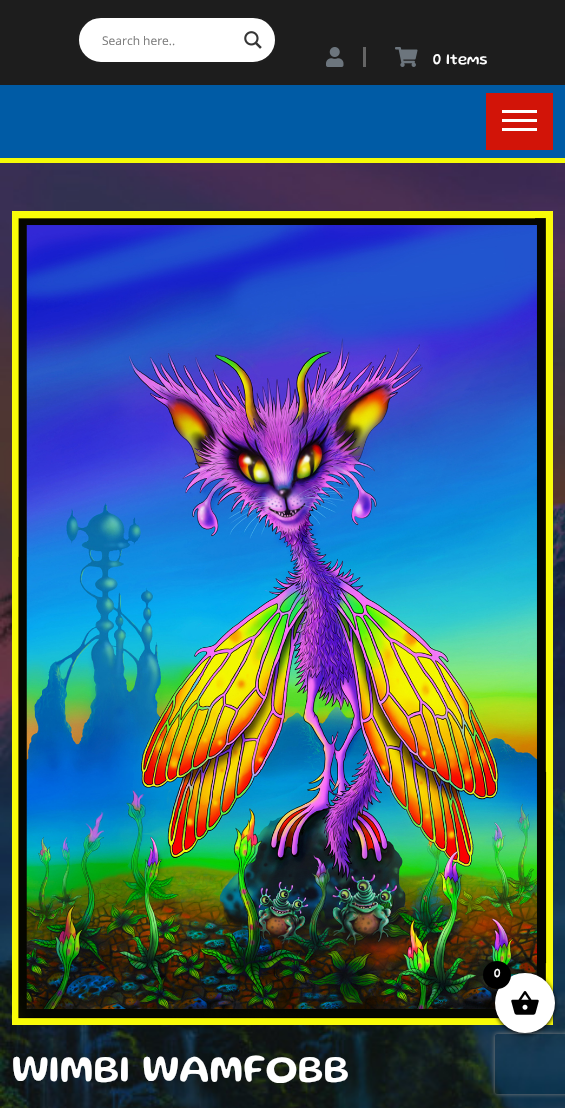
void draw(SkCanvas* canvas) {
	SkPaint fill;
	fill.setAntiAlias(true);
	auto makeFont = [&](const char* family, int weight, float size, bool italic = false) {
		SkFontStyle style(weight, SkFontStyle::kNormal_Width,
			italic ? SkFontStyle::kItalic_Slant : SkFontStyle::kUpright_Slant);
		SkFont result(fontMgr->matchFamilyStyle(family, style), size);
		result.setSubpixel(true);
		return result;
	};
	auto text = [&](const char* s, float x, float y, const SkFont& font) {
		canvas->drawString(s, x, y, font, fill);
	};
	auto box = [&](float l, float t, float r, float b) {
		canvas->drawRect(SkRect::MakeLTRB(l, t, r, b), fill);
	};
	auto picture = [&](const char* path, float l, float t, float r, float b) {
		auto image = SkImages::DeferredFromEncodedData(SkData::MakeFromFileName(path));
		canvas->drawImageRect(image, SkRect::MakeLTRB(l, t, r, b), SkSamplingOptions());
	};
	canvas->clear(0xFF1D1D1D);
	fill.setColor(0xFFFFFFFF);
	canvas->drawRoundRect(SkRect::MakeLTRB(78, 17, 276, 63), 23, 23, fill);
	fill.setStyle(SkPaint::kStroke_Style);
	fill.setStrokeWidth(2);
	fill.setColor(0xFF1E1E1E);
	canvas->drawRoundRect(SkRect::MakeLTRB(78, 17, 276, 63), 23, 23, fill);
	picture("image0.png", 244, 31, 262, 49);
	fill.setStyle(SkPaint::kFill_Style);
	fill.setColor(0xFF656565);
	box(363, 47, 366, 67);
	picture("image1.png", 326, 47, 344, 67);
	picture("image2.png", 395, 47, 418, 67);
	fill.setColor(0xFF005BA5);
	box(0, 85, 565, 158);
	fill.setColor(0xFFD21408);
	box(486, 93, 553, 150);
	fill.setColor(0xFFFFFFFF);
	box(502, 110, 537, 113);
	box(502, 119, 537, 122);
	box(502, 128, 537, 131);
	picture("image4.png", 0, 163, 565, 1108);
	picture("image5.png", 12, 211, 553, 1025);
	fill.setColor(0xFF000000);
	fill.setMaskFilter(SkMaskFilter::MakeBlur(kNormal_SkBlurStyle, 2));
	canvas->drawRoundRect(SkRect::MakeLTRB(495, 974, 555, 1034), 30, 30, fill);
	fill.setMaskFilter(nullptr);
	canvas->save();
	canvas->clipPath(SkPathBuilder(SkPathFillType::kEvenOdd).moveTo(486, 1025).lineTo(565, 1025).lineTo(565, 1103).lineTo(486, 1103).close().moveTo(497, 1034).lineTo(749, 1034).cubicTo(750, 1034, 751, 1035, 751, 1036).lineTo(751, 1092).cubicTo(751, 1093, 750, 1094, 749, 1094).lineTo(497, 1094).cubicTo(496, 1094, 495, 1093, 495, 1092).lineTo(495, 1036).cubicTo(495, 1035, 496, 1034, 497, 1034).close().detach(), true);
	fill.setColor(0xFF808080);
	fill.setMaskFilter(SkMaskFilter::MakeBlur(kNormal_SkBlurStyle, 2.5f));
	canvas->drawRoundRect(SkRect::MakeLTRB(495, 1034, 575, 1094), 2, 2, fill);
	fill.setMaskFilter(nullptr);
	canvas->restore();
	fill.setColor(0xFFFFFFFF);
	canvas->drawCircle(525, 1003, 30, fill);
	fill.setColor(0xFF000000);
	canvas->drawCircle(497, 975, 14, fill);
	picture("image3.png", 511, 991, 539, 1015);
	fill.setColor(0xFFF5FB07);
	box(0, 158, 565, 163);
	auto font1 = makeFont("Open Sans", 400, 12);
	fill.setColor(0xFF7D7D7D);
	text("Search here..", 102, 45, font1);
	auto font2 = makeFont("Gluten", 400, 16);
	fill.setColor(0xFFFFFFFF);
	text("0 Items", 433, 64, font2);
	auto font3 = makeFont("Gluten", 400, 13);
	text("0", 494, 977, font3);
	auto font4 = makeFont("Gluten", 500, 40);
	text("WIMBI WAMFOBB", 12, 1081, font4);
}
